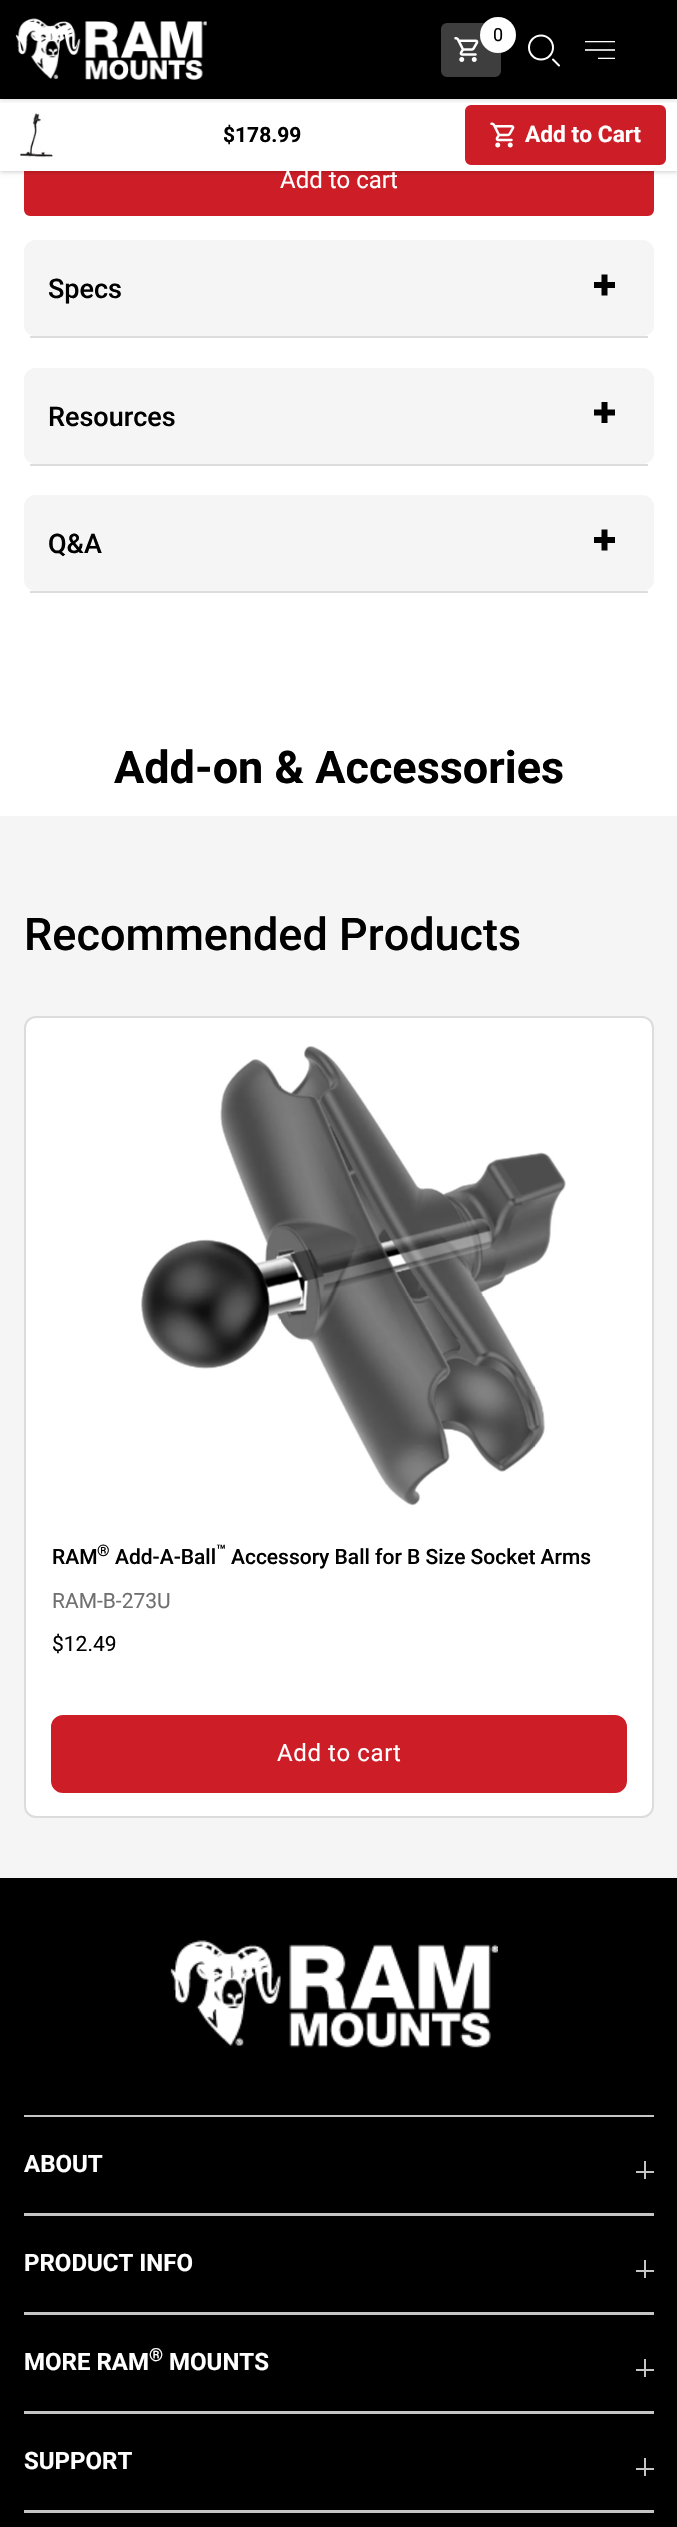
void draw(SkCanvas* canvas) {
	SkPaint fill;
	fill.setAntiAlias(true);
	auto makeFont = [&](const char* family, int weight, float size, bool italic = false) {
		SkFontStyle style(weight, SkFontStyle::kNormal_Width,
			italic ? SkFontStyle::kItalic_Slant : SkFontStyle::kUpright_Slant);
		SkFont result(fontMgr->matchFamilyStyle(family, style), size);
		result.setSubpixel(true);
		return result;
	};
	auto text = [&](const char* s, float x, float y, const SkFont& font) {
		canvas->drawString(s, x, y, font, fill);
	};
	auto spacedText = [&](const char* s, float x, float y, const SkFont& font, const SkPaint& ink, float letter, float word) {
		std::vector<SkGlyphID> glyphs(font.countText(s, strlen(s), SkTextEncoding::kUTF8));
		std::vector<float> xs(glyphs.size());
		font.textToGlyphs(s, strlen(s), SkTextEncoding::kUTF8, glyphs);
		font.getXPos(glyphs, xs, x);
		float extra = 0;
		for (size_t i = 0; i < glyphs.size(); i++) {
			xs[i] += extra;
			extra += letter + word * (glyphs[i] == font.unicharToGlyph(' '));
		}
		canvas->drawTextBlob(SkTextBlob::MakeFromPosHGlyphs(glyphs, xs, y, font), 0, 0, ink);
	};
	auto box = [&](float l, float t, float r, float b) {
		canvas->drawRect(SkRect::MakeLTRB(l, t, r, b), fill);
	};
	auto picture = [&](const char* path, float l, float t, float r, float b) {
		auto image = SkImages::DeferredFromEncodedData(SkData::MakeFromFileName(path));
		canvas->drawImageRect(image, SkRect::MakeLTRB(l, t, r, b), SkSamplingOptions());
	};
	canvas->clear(0xFFFFFFFF);
	fill.setColor(0xFFCD1E27);
	canvas->drawRoundRect(SkRect::MakeLTRB(25.5f, 145.5f, 652.5f, 214.5f), 4.5f, 4.5f, fill);
	fill.setStyle(SkPaint::kStroke_Style);
	fill.setStrokeWidth(3);
	canvas->drawRoundRect(SkRect::MakeLTRB(25.5f, 145.5f, 652.5f, 214.5f), 4.5f, 4.5f, fill);
	fill.setStyle(SkPaint::kFill_Style);
	fill.setColor(0x1A000000);
	fill.setMaskFilter(SkMaskFilter::MakeBlur(kNormal_SkBlurStyle, 1.5f));
	canvas->drawRect(SkRect::MakeLTRB(2, 102, 677, 171), fill);
	fill.setMaskFilter(nullptr);
	fill.setMaskFilter(SkMaskFilter::MakeBlur(kNormal_SkBlurStyle, 2));
	canvas->drawRect(SkRect::MakeLTRB(0, 101, 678, 173), fill);
	fill.setMaskFilter(nullptr);
	fill.setColor(0xFF000000);
	box(0, 0, 677, 99);
	fill.setColor(0xFFFFFFFF);
	box(0, 99, 677, 171);
	fill.setColor(0xFFCD1E27);
	canvas->drawRoundRect(SkRect::MakeLTRB(466.5f, 106.5f, 664.5f, 163.5f), 4.5f, 4.5f, fill);
	fill.setStyle(SkPaint::kStroke_Style);
	canvas->drawRoundRect(SkRect::MakeLTRB(466.5f, 106.5f, 664.5f, 163.5f), 4.5f, 4.5f, fill);
	canvas->save();
	canvas->clipRect(SkRect::MakeLTRB(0, 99, 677, 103));
	fill.setStyle(SkPaint::kFill_Style);
	fill.setColor(0x1A000000);
	fill.setMaskFilter(SkMaskFilter::MakeBlur(kNormal_SkBlurStyle, 2));
	canvas->drawRect(SkRect::MakeLTRB(0, 2, 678, 101), fill);
	fill.setMaskFilter(nullptr);
	canvas->restore();
	picture("image0.png", 15, 18, 207, 80);
	fill.setColor(0xFF3E3E3E);
	canvas->drawRoundRect(SkRect::MakeLTRB(442.5f, 24.5f, 499.5f, 75.5f), 4.5f, 4.5f, fill);
	fill.setStyle(SkPaint::kStroke_Style);
	canvas->drawRoundRect(SkRect::MakeLTRB(442.5f, 24.5f, 499.5f, 75.5f), 4.5f, 4.5f, fill);
	fill.setStyle(SkPaint::kFill_Style);
	fill.setColor(0xFFFFFFFF);
	canvas->drawCircle(498, 35, 18, fill);
	picture("image1.png", 454, 37, 479, 62);
	fill.setStyle(SkPaint::kStroke_Style);
	fill.setStrokeWidth(2);
	canvas->drawCircle(541, 47.5f, 12, fill);
	fill.setStrokeCap(SkPaint::kRound_Cap);
	canvas->drawPath(SkPathBuilder().moveTo(559, 65.5f).lineTo(553, 59.5f).detach(), fill);
	canvas->save();
	canvas->clipRect(SkRect::MakeLTRB(585, 41, 615, 59));
	fill.setStrokeWidth(1.6f);
	fill.setStrokeCap(SkPaint::kButt_Cap);
	canvas->drawPath(SkPathBuilder().moveTo(585, 41.5f).lineTo(615, 41.5f).detach(), fill);
	canvas->restore();
	fill.setStyle(SkPaint::kFill_Style);
	fill.setColor(0xFFCCCCCC);
	box(585, 49, 615, 51);
	canvas->save();
	canvas->clipRect(SkRect::MakeLTRB(585, 41, 615, 59));
	fill.setStyle(SkPaint::kStroke_Style);
	fill.setColor(0xFFFFFFFF);
	canvas->drawPath(SkPathBuilder().moveTo(598, 58.5f).lineTo(615, 58.5f).detach(), fill);
	canvas->restore();
	picture("image2.png", 20, 113, 53, 159);
	picture("image3.png", 490, 122, 515, 148);
	fill.setStyle(SkPaint::kFill_Style);
	fill.setColor(0xFFF5F5F5);
	canvas->drawPath(SkPathBuilder().moveTo(36, 240).lineTo(642, 240).cubicTo(649, 240, 654, 245, 654, 252).lineTo(654, 326).cubicTo(654, 331, 649, 336, 642, 336).lineTo(36, 336).cubicTo(29, 336, 24, 331, 24, 326).lineTo(24, 252).cubicTo(24, 245, 29, 240, 36, 240).close().detach(), fill);
	fill.setColor(0xFFDDDDDD);
	box(30, 336, 648, 338);
	picture("image4.png", 594, 274, 615, 296);
	fill.setColor(0xFFF5F5F5);
	canvas->drawPath(SkPathBuilder().moveTo(36, 368).lineTo(642, 368).cubicTo(649, 368, 654, 373, 654, 380).lineTo(654, 453).cubicTo(654, 459, 649, 464, 642, 464).lineTo(36, 464).cubicTo(29, 464, 24, 459, 24, 453).lineTo(24, 380).cubicTo(24, 373, 29, 368, 36, 368).close().detach(), fill);
	fill.setColor(0xFFDDDDDD);
	box(30, 464, 648, 466);
	picture("image5.png", 594, 402, 615, 423);
	fill.setColor(0xFFF5F5F5);
	canvas->drawPath(SkPathBuilder().moveTo(36, 495).lineTo(642, 495).cubicTo(649, 495, 654, 500, 654, 507).lineTo(654, 580).cubicTo(654, 586, 649, 591, 642, 591).lineTo(36, 591).cubicTo(29, 591, 24, 586, 24, 580).lineTo(24, 507).cubicTo(24, 500, 29, 495, 36, 495).close().detach(), fill);
	fill.setColor(0xFFDDDDDD);
	box(30, 591, 648, 593);
	picture("image4.png", 594, 529, 615, 551);
	fill.setColor(0xFFF5F5F5);
	box(0, 816, 677, 1878);
	fill.setColor(0xFFFFFFFF);
	canvas->drawRoundRect(SkRect::MakeLTRB(25, 1017, 653, 1817), 11, 11, fill);
	fill.setStyle(SkPaint::kStroke_Style);
	fill.setStrokeWidth(2);
	fill.setColor(0xFFDCDCDC);
	canvas->drawRoundRect(SkRect::MakeLTRB(25, 1017, 653, 1817), 11, 11, fill);
	picture("image6.png", 141, 1046, 566, 1506);
	fill.setStyle(SkPaint::kFill_Style);
	fill.setColor(0xFFCD1E27);
	canvas->drawRoundRect(SkRect::MakeLTRB(52.5f, 1716.5f, 625.5f, 1791.5f), 10.5f, 10.5f, fill);
	fill.setStyle(SkPaint::kStroke_Style);
	fill.setStrokeWidth(3);
	canvas->drawRoundRect(SkRect::MakeLTRB(52.5f, 1716.5f, 625.5f, 1791.5f), 10.5f, 10.5f, fill);
	fill.setStyle(SkPaint::kFill_Style);
	fill.setColor(0xFF000000);
	box(0, 1878, 677, 2527);
	picture("image7.png", 170, 1940, 498, 2048);
	fill.setColor(0xFFC5C5C5);
	box(24, 2213, 654, 2216);
	box(24, 2115, 654, 2117);
	box(644, 2161, 646, 2179);
	box(636, 2171, 654, 2173);
	box(24, 2312, 654, 2315);
	box(644, 2260, 646, 2278);
	box(636, 2270, 654, 2272);
	box(24, 2411, 654, 2414);
	box(644, 2359, 646, 2377);
	box(636, 2369, 654, 2371);
	box(24, 2510, 654, 2513);
	box(644, 2458, 646, 2476);
	box(636, 2468, 654, 2470);
	auto font1 = makeFont("Roboto", 400, 18);
	fill.setColor(0xFF000000);
	text("0", 493, 41, font1);
	auto font2 = makeFont("Roboto", 700, 21);
	text("$178.99", 223, 142, font2);
	auto font3 = makeFont("Roboto", 700, 22.75f);
	fill.setColor(0xFFFFFFFF);
	text("Add to Cart", 525, 142, font3);
	auto font4 = makeFont("Roboto", 400, 24);
	text("Add to cart", 280, 188, font4);
	auto font5 = makeFont("Roboto", 500, 27);
	fill.setColor(0xFF000000);
	text("Specs", 48, 298, font5);
	text("Resources", 48, 426, font5);
	text("Q&A", 48, 553, font5);
	auto font6 = makeFont("Roboto", 700, 45);
	text("Add-on & Accessories", 114, 783, font6);
	auto font7 = makeFont("Roboto", 500, 45);
	text("Recommended Products", 24, 950, font7);
	auto font8 = makeFont("Roboto", 500, 16);
	text("®", 97, 1556, font8);
	text("™", 216, 1556, font8);
	auto font9 = makeFont("Roboto", 500, 21);
	text("RAM", 52, 1564, font9);
	text("Add-A-Ball", 115, 1564, font9);
	text("Accessory Ball for B Size Socket Arms", 231, 1564, font9);
	auto font10 = makeFont("Roboto", 400, 21);
	fill.setColor(0xFF707070);
	text("RAM-B-273U", 52, 1608, font10);
	fill.setColor(0xFF000000);
	text("$12.49", 52, 1651, font10);
	fill.setColor(0xFFFFFFFF);
	spacedText("Add to cart", 277, 1761, font4, fill, 0.6f, 0);
	auto font11 = makeFont("Roboto", 700, 24);
	text("ABOUT", 24, 2172, font11);
	text("PRODUCT INFO", 24, 2271, font11);
	text("MORE RAM", 24, 2370, font11);
	auto font12 = makeFont("Roboto", 700, 18);
	text("®", 149, 2361, font12);
	text("MOUNTS", 169, 2370, font11);
	text("SUPPORT", 24, 2469, font11);
}
